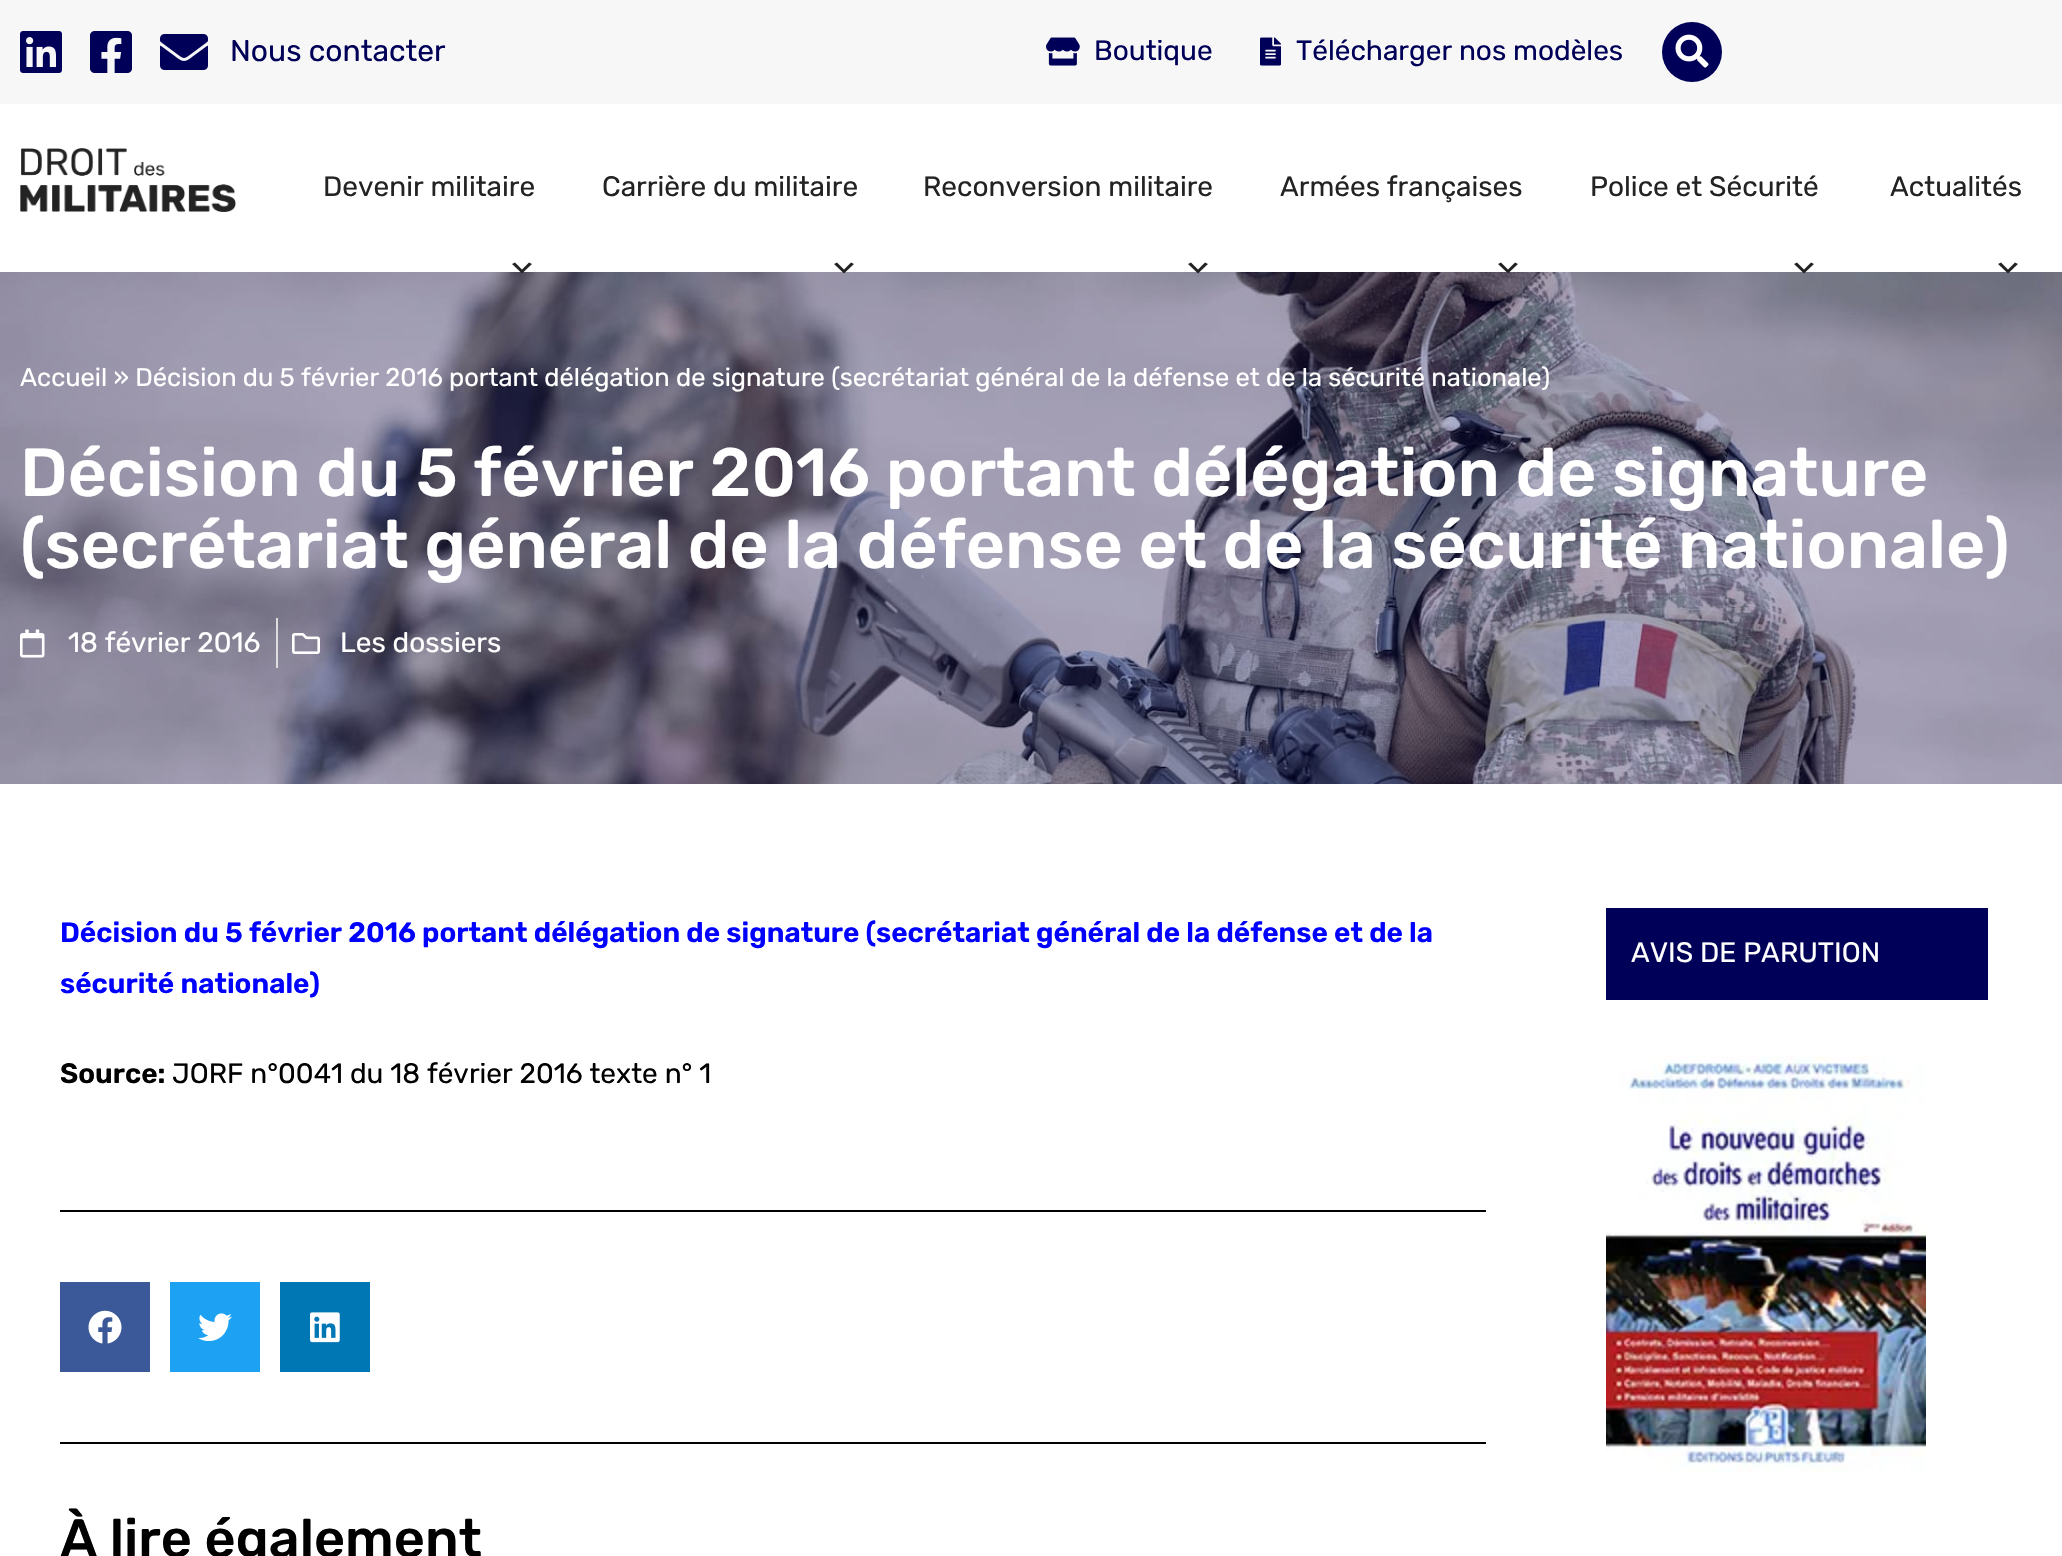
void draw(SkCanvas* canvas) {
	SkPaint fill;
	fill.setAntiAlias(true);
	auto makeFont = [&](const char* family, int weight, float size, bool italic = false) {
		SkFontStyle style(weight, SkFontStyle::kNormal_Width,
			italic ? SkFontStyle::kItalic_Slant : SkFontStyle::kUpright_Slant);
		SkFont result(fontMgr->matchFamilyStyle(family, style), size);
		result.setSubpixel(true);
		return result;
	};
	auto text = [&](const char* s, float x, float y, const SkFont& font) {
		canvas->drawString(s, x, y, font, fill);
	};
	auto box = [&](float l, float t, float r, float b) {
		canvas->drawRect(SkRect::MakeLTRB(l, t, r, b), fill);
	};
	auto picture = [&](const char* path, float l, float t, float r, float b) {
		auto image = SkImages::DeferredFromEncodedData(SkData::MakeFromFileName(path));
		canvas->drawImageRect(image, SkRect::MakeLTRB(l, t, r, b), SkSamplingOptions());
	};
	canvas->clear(0xFFFFFFFF);
	fill.setColor(0xFFF7F7F7);
	box(0, 0, 2062, 104);
	picture("image0.png", 20, 31, 62, 73);
	picture("image1.png", 90, 31, 132, 73);
	picture("image2.png", 160, 34, 208, 70);
	picture("image3.png", 1046, 37, 1080, 66);
	picture("image4.png", 1260, 37, 1281, 66);
	fill.setColor(0xFF000058);
	canvas->drawCircle(1692, 52, 30, fill);
	picture("image5.png", 1675, 34, 1709, 68);
	picture("image6.png", 20, 148, 236, 212);
	picture("image7.png", 0, 272, 2062, 784);
	fill.setColor(0xFF232323);
	canvas->drawPath(SkPathBuilder().moveTo(515, 262.5f).lineTo(522, 269.5f).lineTo(529, 262.5f).lineTo(532, 264).lineTo(522, 273.5f).lineTo(512, 264).close().detach(), fill);
	canvas->drawPath(SkPathBuilder().moveTo(837, 262.5f).lineTo(844, 269.5f).lineTo(851, 262.5f).lineTo(854, 264).lineTo(844, 273.5f).lineTo(834, 264).close().detach(), fill);
	canvas->drawPath(SkPathBuilder().moveTo(1191, 262.5f).lineTo(1198, 269.5f).lineTo(1205, 262.5f).lineTo(1208, 264).lineTo(1198, 273.5f).lineTo(1188, 264).close().detach(), fill);
	canvas->drawPath(SkPathBuilder().moveTo(1501, 262.5f).lineTo(1508, 269.5f).lineTo(1515, 262.5f).lineTo(1518, 264).lineTo(1508, 273.5f).lineTo(1498, 264).close().detach(), fill);
	canvas->drawPath(SkPathBuilder().moveTo(1797, 262.5f).lineTo(1804, 269.5f).lineTo(1811, 262.5f).lineTo(1814, 264).lineTo(1804, 273.5f).lineTo(1794, 264).close().detach(), fill);
	canvas->drawPath(SkPathBuilder().moveTo(2001, 262.5f).lineTo(2008, 269.5f).lineTo(2015, 262.5f).lineTo(2018, 264).lineTo(2008, 273.5f).lineTo(1998, 264).close().detach(), fill);
	picture("image8.png", 20, 629, 45, 658);
	fill.setColor(0xFFDDDDDD);
	box(276, 618, 278, 668);
	picture("image9.png", 292, 633, 320, 654);
	fill.setColor(0xFF000000);
	box(60, 1210, 1486, 1212);
	fill.setColor(0xFF3B5998);
	box(60, 1282, 150, 1372);
	picture("image10.png", 88, 1310, 122, 1344);
	fill.setColor(0xFF1DA1F2);
	box(170, 1282, 260, 1372);
	picture("image11.png", 198, 1313, 232, 1342);
	fill.setColor(0xFF0077B5);
	box(280, 1282, 370, 1372);
	picture("image12.png", 310, 1312, 340, 1343);
	fill.setColor(0xFF000000);
	box(60, 1442, 1486, 1444);
	fill.setColor(0xFF000058);
	box(1606, 908, 1988, 1000);
	picture("image13.png", 1606, 1056, 1926, 1472);
	auto font1 = makeFont("Rubik", 400, 30);
	text("Nous contacter", 230, 61, font1);
	auto font2 = makeFont("Rubik", 400, 28);
	text("Boutique", 1094, 60, font2);
	text("Télécharger nos modèles", 1296, 60, font2);
	fill.setColor(0xFF232323);
	text("Devenir militaire", 323, 196, font2);
	text("Carrière du militaire", 602, 196, font2);
	text("Reconversion militaire", 923, 196, font2);
	text("Armées françaises", 1280, 196, font2);
	text("Police et Sécurité", 1590, 196, font2);
	text("Actualités", 1890, 196, font2);
	auto font3 = makeFont("Rubik", 400, 25.5f);
	fill.setColor(0xFFFFFFFF);
	text("Accueil » Décision du 5 février 2016 portant délégation de signature (secrétariat général de la défense et de la sécurité nationale)", 20, 386, font3);
	auto font4 = makeFont("Rubik", 500, 68);
	text("Décision du 5 février 2016 portant délégation de signature", 20, 496, font4);
	text("(secrétariat général de la défense et de la sécurité nationale)", 20, 568, font4);
	text("18 février 2016", 68, 652, font2);
	text("Les dossiers", 340, 652, font2);
	auto font5 = makeFont("Rubik", 600, 28);
	fill.setColor(0xFF0000FF);
	text("Décision du 5 février 2016 portant délégation de signature (secrétariat général de la défense et de la", 60, 942, font5);
	text("sécurité nationale)", 60, 993, font5);
	fill.setColor(0xFF000000);
	text("Source:", 60, 1083, font5);
	text("JORF n°0041 du 18 février 2016 texte n° 1", 172, 1083, font2);
	auto font6 = makeFont("Rubik", 500, 54);
	text("À lire également", 60, 1557, font6);
	fill.setColor(0xFFFFFFFF);
	text("AVIS DE PARUTION", 1631, 962, font2);
}
